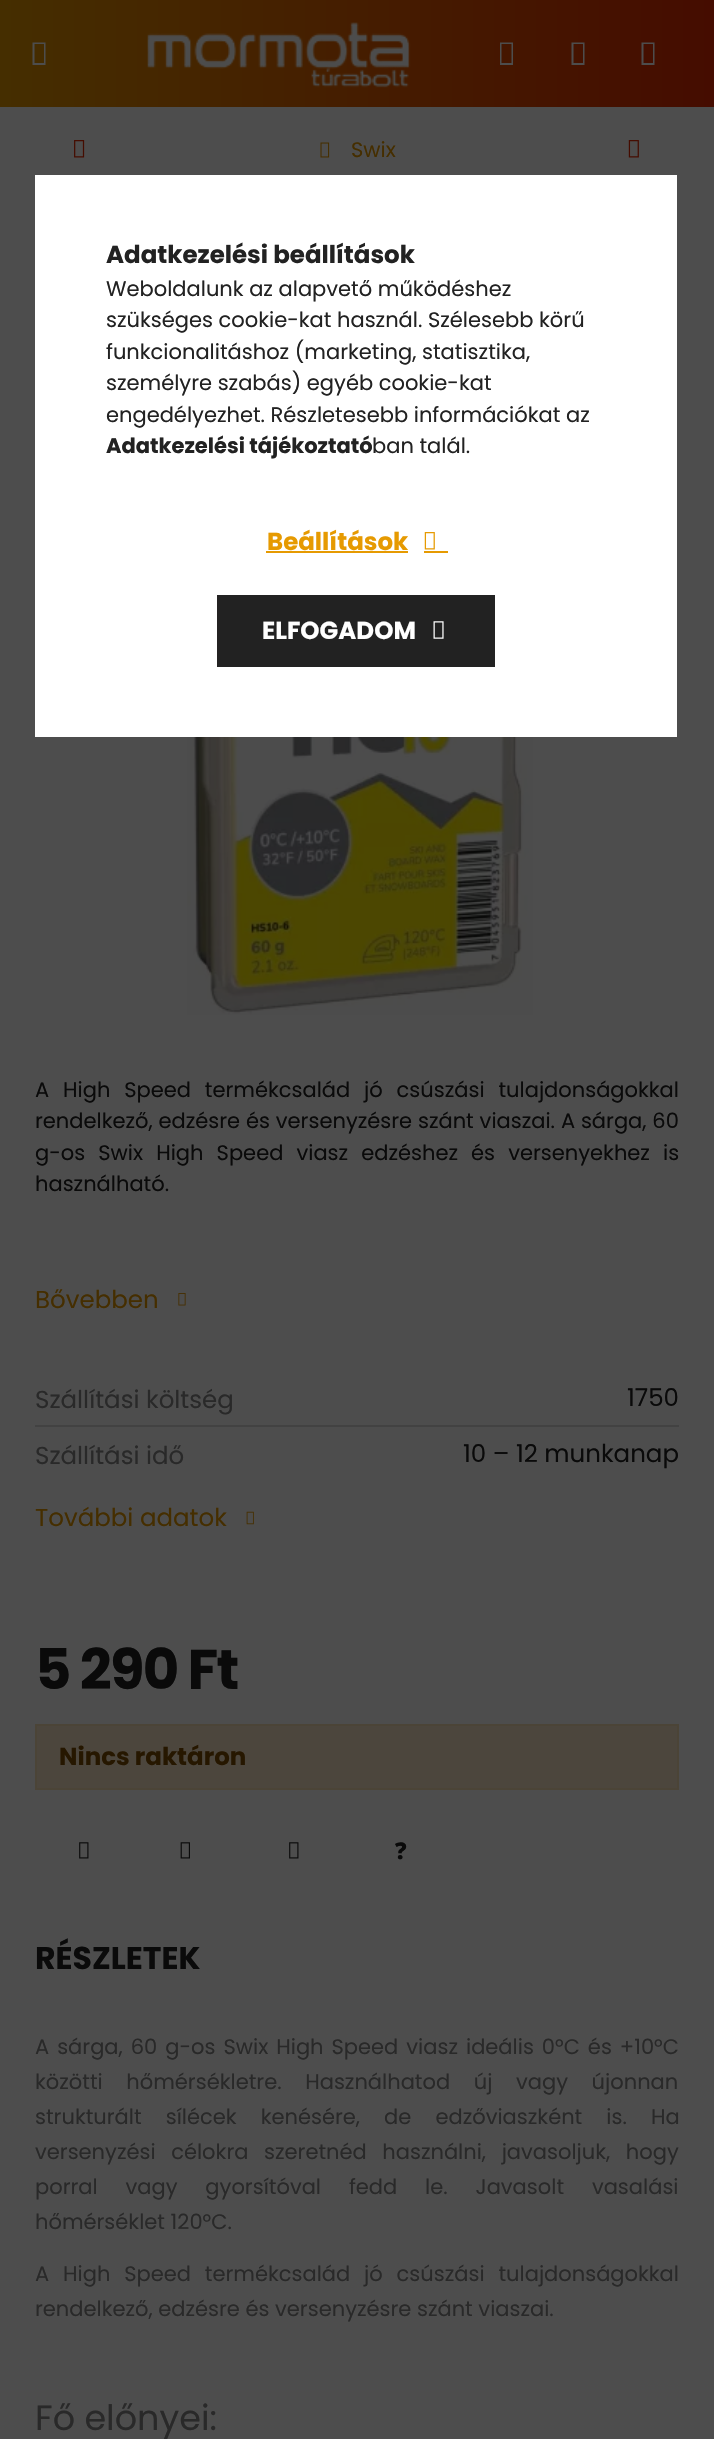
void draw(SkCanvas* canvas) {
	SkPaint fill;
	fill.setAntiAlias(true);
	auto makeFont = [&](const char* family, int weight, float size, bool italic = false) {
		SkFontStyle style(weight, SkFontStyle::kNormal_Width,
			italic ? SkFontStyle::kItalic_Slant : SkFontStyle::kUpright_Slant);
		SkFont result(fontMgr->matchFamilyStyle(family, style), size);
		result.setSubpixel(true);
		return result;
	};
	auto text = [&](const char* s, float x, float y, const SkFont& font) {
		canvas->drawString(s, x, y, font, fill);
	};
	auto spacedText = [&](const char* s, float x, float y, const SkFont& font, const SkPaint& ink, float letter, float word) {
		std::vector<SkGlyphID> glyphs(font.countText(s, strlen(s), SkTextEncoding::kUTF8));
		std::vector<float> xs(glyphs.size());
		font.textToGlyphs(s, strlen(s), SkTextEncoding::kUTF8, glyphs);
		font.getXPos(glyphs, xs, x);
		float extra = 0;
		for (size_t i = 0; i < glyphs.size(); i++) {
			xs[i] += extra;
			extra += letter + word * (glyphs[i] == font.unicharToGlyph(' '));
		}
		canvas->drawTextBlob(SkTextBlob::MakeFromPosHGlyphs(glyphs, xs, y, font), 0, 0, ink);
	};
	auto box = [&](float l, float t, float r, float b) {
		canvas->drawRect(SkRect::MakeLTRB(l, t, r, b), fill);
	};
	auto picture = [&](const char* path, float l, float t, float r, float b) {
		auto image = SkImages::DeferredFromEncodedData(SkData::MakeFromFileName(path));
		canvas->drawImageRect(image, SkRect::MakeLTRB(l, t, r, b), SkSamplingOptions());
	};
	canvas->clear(0xFF4D4D4D);
	{
		const SkColor colors[] = {0xFF452E00, 0xFF450C00};
		const float stops[] = {0, 1};
		const SkPoint ends[] = {{0, 53}, {714, 53}};
		fill.setShader(SkGradientShader::MakeLinear(ends, colors, stops, 2, SkTileMode::kClamp));
		fill.setAlpha(255);
	}
	box(0, 0, 714, 107);
	fill.setShader(nullptr);
	fill.setColor(0xFF4D4D4D);
	canvas->drawPath(SkPathBuilder().moveTo(32.5f, 65).lineTo(32.5f, 42.5f).lineTo(45.5f, 42.5f).lineTo(45.5f, 65).close().moveTo(34.5f, 63).lineTo(44, 63).lineTo(44, 44).lineTo(34.5f, 44).close().detach(), fill);
	picture("image0.png", 147, 22, 411, 88);
	canvas->drawPath(SkPathBuilder().moveTo(500, 65).lineTo(500, 42.5f).lineTo(513, 42.5f).lineTo(513, 65).close().moveTo(501.5f, 63).lineTo(511.5f, 63).lineTo(511.5f, 44).lineTo(501.5f, 44).close().detach(), fill);
	canvas->drawPath(SkPathBuilder().moveTo(571.5f, 65).lineTo(571.5f, 42.5f).lineTo(584.5f, 42.5f).lineTo(584.5f, 65).close().moveTo(573.5f, 63).lineTo(583, 63).lineTo(583, 44).lineTo(573.5f, 44).close().detach(), fill);
	canvas->drawPath(SkPathBuilder().moveTo(641.5f, 65).lineTo(641.5f, 42.5f).lineTo(654.5f, 42.5f).lineTo(654.5f, 65).close().moveTo(643.5f, 63).lineTo(653, 63).lineTo(653, 44).lineTo(643.5f, 44).close().detach(), fill);
	picture("image1.png", 74, 140, 85, 158);
	picture("image2.png", 320, 142, 330, 158);
	picture("image3.png", 628, 140, 639, 158);
	picture("image4.png", 187, 737, 533, 1015);
	picture("image5.png", 178, 1293, 186, 1306);
	fill.setColor(0xFF424242);
	box(35, 1425, 679, 1427);
	picture("image6.png", 246, 1511, 254, 1525);
	fill.setColor(0xFF4C463D);
	canvas->drawRect(SkRect::MakeLTRB(36, 1725, 678, 1789), fill);
	fill.setStyle(SkPaint::kStroke_Style);
	fill.setStrokeWidth(2);
	fill.setColor(0xFF4B4437);
	canvas->drawRect(SkRect::MakeLTRB(36, 1725, 678, 1789), fill);
	picture("image7.png", 79, 1842, 89, 1859);
	picture("image8.png", 180, 1842, 190, 1859);
	picture("image7.png", 289, 1842, 299, 1859);
	fill.setStyle(SkPaint::kFill_Style);
	fill.setColor(0xFFFFFFFF);
	box(35, 175, 677, 737);
	fill.setColor(0xFFE69A01);
	box(266, 551, 408, 553);
	picture("image9.png", 424, 532, 435, 550);
	box(424, 551, 448, 553);
	{
		const SkColor colors[] = {0xFFE69A01, 0xFFE62701, 0xFF222222, 0xFF222222};
		const float stops[] = {0, 0.33f, 0.67f, 1};
		const SkPoint ends[] = {{-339, 631}, {496, 631}};
		fill.setShader(SkGradientShader::MakeLinear(ends, colors, stops, 4, SkTileMode::kClamp));
		fill.setAlpha(255);
	}
	box(217, 595, 495, 667);
	picture("image10.png", 433, 621, 444, 639);
	auto font1 = makeFont("Poppins", 400, 21);
	fill.setShader(nullptr);
	fill.setColor(0xFF452E00);
	text("Swix", 351, 157, font1);
	fill.setColor(0xFF0A0A0A);
	spacedText("A High Speed termékcsalád jó csúszási tulajdonságokkal", 35, 1097, font1, fill, 0, 8.25f);
	spacedText("rendelkező, edzésre és versenyzésre szánt viaszai. A sárga, 60", 35, 1128, font1, fill, 0, 0.25f);
	spacedText("g-os Swix High Speed viasz edzéshez és versenyekhez is", 35, 1160, font1, fill, 0, 7.5f);
	text("használható.", 35, 1191, font1);
	auto font2 = makeFont("Poppins", 400, 24.5f);
	fill.setColor(0xFF452E00);
	text("Bővebben", 35, 1308, font2);
	fill.setColor(0xFF292929);
	text("Szállítási költség", 35, 1408, font2);
	fill.setColor(0xFF0A0A0A);
	text("1750", 627, 1406, font2);
	fill.setColor(0xFF292929);
	text("Szállítási idő", 35, 1464, font2);
	fill.setColor(0xFF0A0A0A);
	text("10 – 12 munkanap", 463, 1462, font2);
	fill.setColor(0xFF452E00);
	text("További adatok", 35, 1526, font2);
	auto font3 = makeFont("Poppins", 700, 56);
	fill.setColor(0xFF0A0A0A);
	spacedText("5 290 Ft", 35, 1689, font3, fill, -1.75f, 0);
	auto font4 = makeFont("Poppins", 700, 24.5f);
	fill.setColor(0xFF261700);
	text("Nincs raktáron", 59, 1765, font4);
	auto font5 = makeFont("Noto Sans", 900, 23);
	fill.setColor(0xFF0A0A0A);
	text("?", 395, 1859, font5);
	auto font6 = makeFont("Poppins", 700, 31.5f);
	text("RÉSZLETEK", 35, 1969, font6);
	fill.setColor(0xFF292929);
	spacedText("A sárga, 60 g-os Swix High Speed viasz ideális 0°C és +10°C", 35, 2054, font1, fill, 0, 2.4f);
	spacedText("közötti hőmérsékletre. Használhatod új vagy újonnan", 35, 2089, font1, fill, 0, 18);
	spacedText("strukturált sílécek kenésére, de edzőviaszként is. Ha", 35, 2124, font1, fill, 0, 18.5f);
	spacedText("versenyzési célokra szeretnéd használni, javasoljuk, hogy", 35, 2159, font1, fill, 0, 10);
	spacedText("porral vagy gyorsítóval fedd le. Javasolt vasalási", 35, 2194, font1, fill, 0, 22.25f);
	text("hőmérséklet 120°C.", 35, 2229, font1);
	spacedText("A High Speed termékcsalád jó csúszási tulajdonságokkal", 35, 2281, font1, fill, 0, 8.25f);
	text("rendelkező, edzésre és versenyzésre szánt viaszai.", 35, 2316, font1);
	auto font7 = makeFont("Poppins", 400, 35);
	text("Fő előnyei:", 35, 2430, font7);
	fill.setColor(0xFF222222);
	text("Adatkezelési beállítások", 106, 263, font4);
	text("Weboldalunk az alapvető működéshez", 106, 296, font1);
	text("szükséges cookie-kat használ. Szélesebb körű", 106, 327, font1);
	text("funkcionalitáshoz (marketing, statisztika,", 106, 359, font1);
	text("személyre szabás) egyéb cookie-kat", 106, 390, font1);
	text("engedélyezhet. Részletesebb információkat az", 106, 422, font1);
	auto font8 = makeFont("Poppins", 700, 21);
	text("Adatkezelési tájékoztató", 106, 453, font8);
	text("ban talál.", 372, 453, font1);
	fill.setColor(0xFFE69A01);
	text("Beállítások", 267, 550, font4);
	fill.setColor(0xFFFFFFFF);
	text("ELFOGADOM", 262, 639, font4);
}
